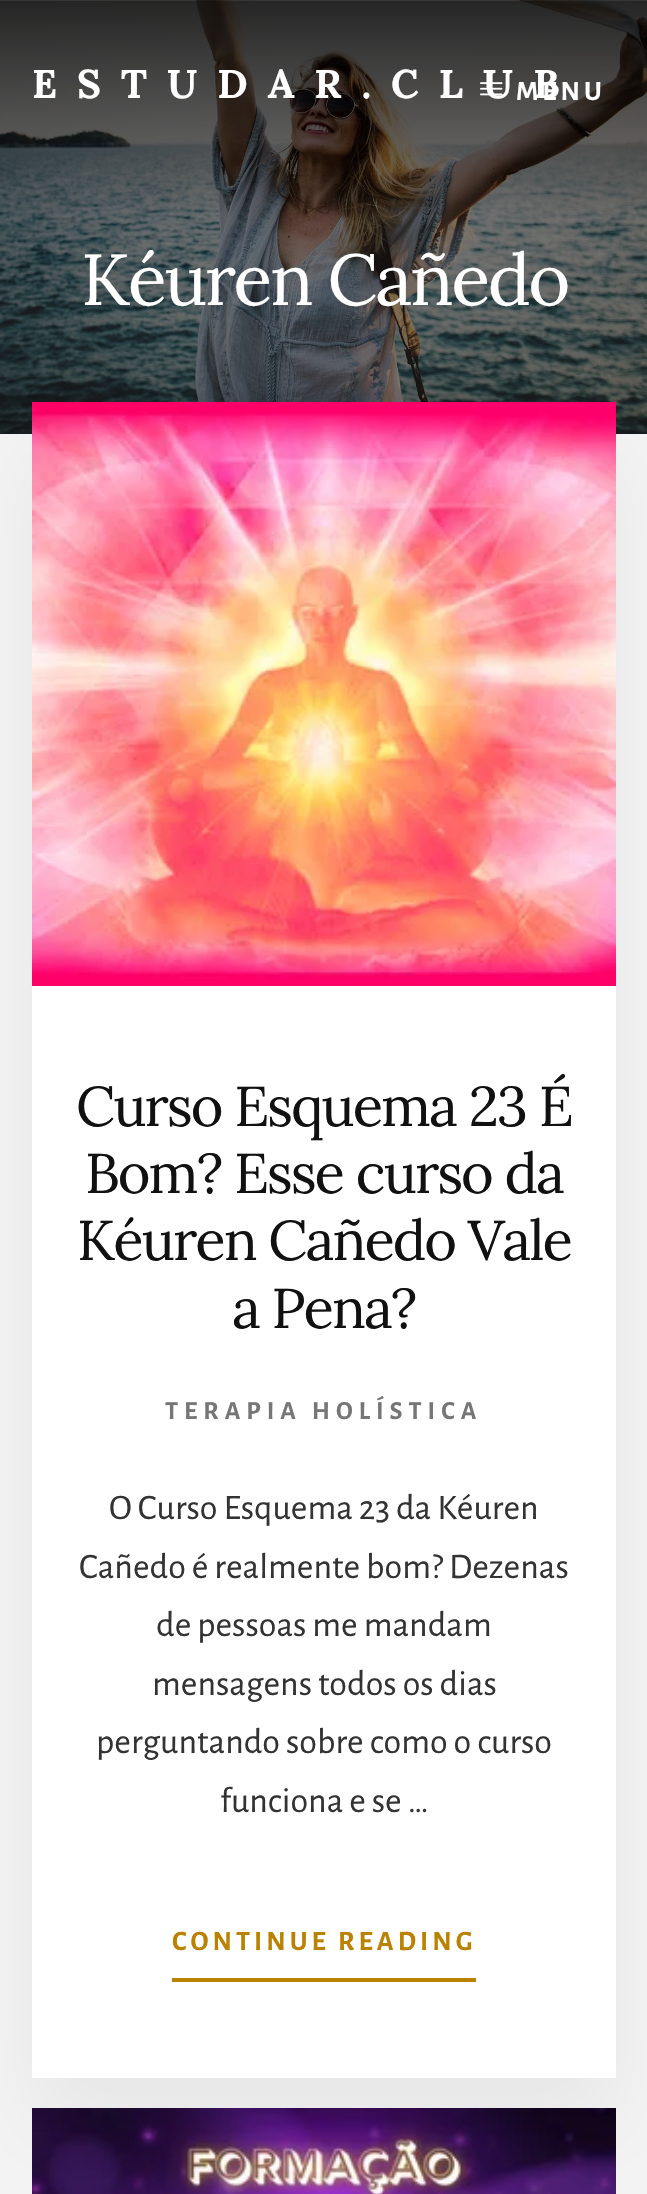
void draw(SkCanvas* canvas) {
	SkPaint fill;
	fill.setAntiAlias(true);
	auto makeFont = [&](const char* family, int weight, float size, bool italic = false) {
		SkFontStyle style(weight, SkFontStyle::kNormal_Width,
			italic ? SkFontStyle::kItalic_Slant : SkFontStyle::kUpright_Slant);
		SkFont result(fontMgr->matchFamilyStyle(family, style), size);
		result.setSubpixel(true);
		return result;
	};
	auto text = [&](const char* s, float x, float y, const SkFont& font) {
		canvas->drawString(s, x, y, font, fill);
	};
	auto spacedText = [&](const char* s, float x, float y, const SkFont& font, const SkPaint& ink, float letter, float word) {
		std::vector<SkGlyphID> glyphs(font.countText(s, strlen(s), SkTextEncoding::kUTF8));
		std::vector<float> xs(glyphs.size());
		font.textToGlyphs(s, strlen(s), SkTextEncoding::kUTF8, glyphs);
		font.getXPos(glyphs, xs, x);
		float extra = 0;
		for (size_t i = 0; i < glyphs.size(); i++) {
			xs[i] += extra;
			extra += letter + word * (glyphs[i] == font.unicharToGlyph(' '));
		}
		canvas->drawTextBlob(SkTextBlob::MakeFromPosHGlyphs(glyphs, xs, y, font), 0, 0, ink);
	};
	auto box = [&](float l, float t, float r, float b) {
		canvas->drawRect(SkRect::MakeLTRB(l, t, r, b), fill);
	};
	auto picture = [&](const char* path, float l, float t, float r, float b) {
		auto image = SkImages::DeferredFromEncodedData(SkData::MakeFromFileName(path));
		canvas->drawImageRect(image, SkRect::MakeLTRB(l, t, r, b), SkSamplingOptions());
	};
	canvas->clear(0xFFF4F4F4);
	picture("image0.png", 0, 0, 647, 434);
	fill.setColor(0x0D000000);
	fill.setMaskFilter(SkMaskFilter::MakeBlur(kNormal_SkBlurStyle, 40));
	canvas->drawRect(SkRect::MakeLTRB(32, 452, 616, 2128), fill);
	fill.setMaskFilter(nullptr);
	fill.setColor(0xFFFFFFFF);
	box(32, 986, 616, 2078);
	picture("image2.png", 32, 402, 616, 986);
	fill.setColor(0xFFBB8100);
	box(172, 1978, 476, 1982);
	picture("image3.png", 32, 2108, 616, 2194);
	auto font1 = makeFont("Lora", 700, 40);
	fill.setColor(0xFFFFFFFF);
	spacedText("ESTUDAR.CLUB", 32, 98, font1, fill, 20, 0);
	picture("image1.png", 480, 82, 503, 96);
	auto font2 = makeFont("Alegreya Sans", 700, 28);
	spacedText("MENU", 516, 100, font2, fill, 4, 0);
	auto font3 = makeFont("Lora", 400, 72);
	spacedText("Kéuren Cañedo", 81, 305, font3, fill, -2.5f, 0);
	auto font4 = makeFont("Lora", 400, 56);
	fill.setColor(0xFF111111);
	spacedText("Curso Esquema 23 É", 76, 1126, font4, fill, -2, 0);
	spacedText("Bom? Esse curso da", 85, 1193, font4, fill, -2, 0);
	spacedText("Kéuren Cañedo Vale", 77, 1260, font4, fill, -2, 0);
	spacedText("a Pena?", 232, 1328, font4, fill, -2, 0);
	auto font5 = makeFont("Alegreya Sans", 700, 26);
	fill.setColor(0xFF767676);
	spacedText("TERAPIA HOLÍSTICA", 165, 1419, font5, fill, 6, 0);
	auto font6 = makeFont("Alegreya Sans", 400, 36);
	fill.setColor(0xFF333333);
	text("O Curso Esquema 23 da Kéuren", 109, 1519, font6);
	text("Cañedo é realmente bom? Dezenas", 79, 1578, font6);
	text("de pessoas me mandam", 156, 1636, font6);
	text("mensagens todos os dias", 152, 1695, font6);
	text("perguntando sobre como o curso", 96, 1753, font6);
	text("funciona e se …", 220, 1812, font6);
	fill.setColor(0xFFBB8100);
	spacedText("CONTINUE READING", 172, 1950, font2, fill, 4, 0);
}
